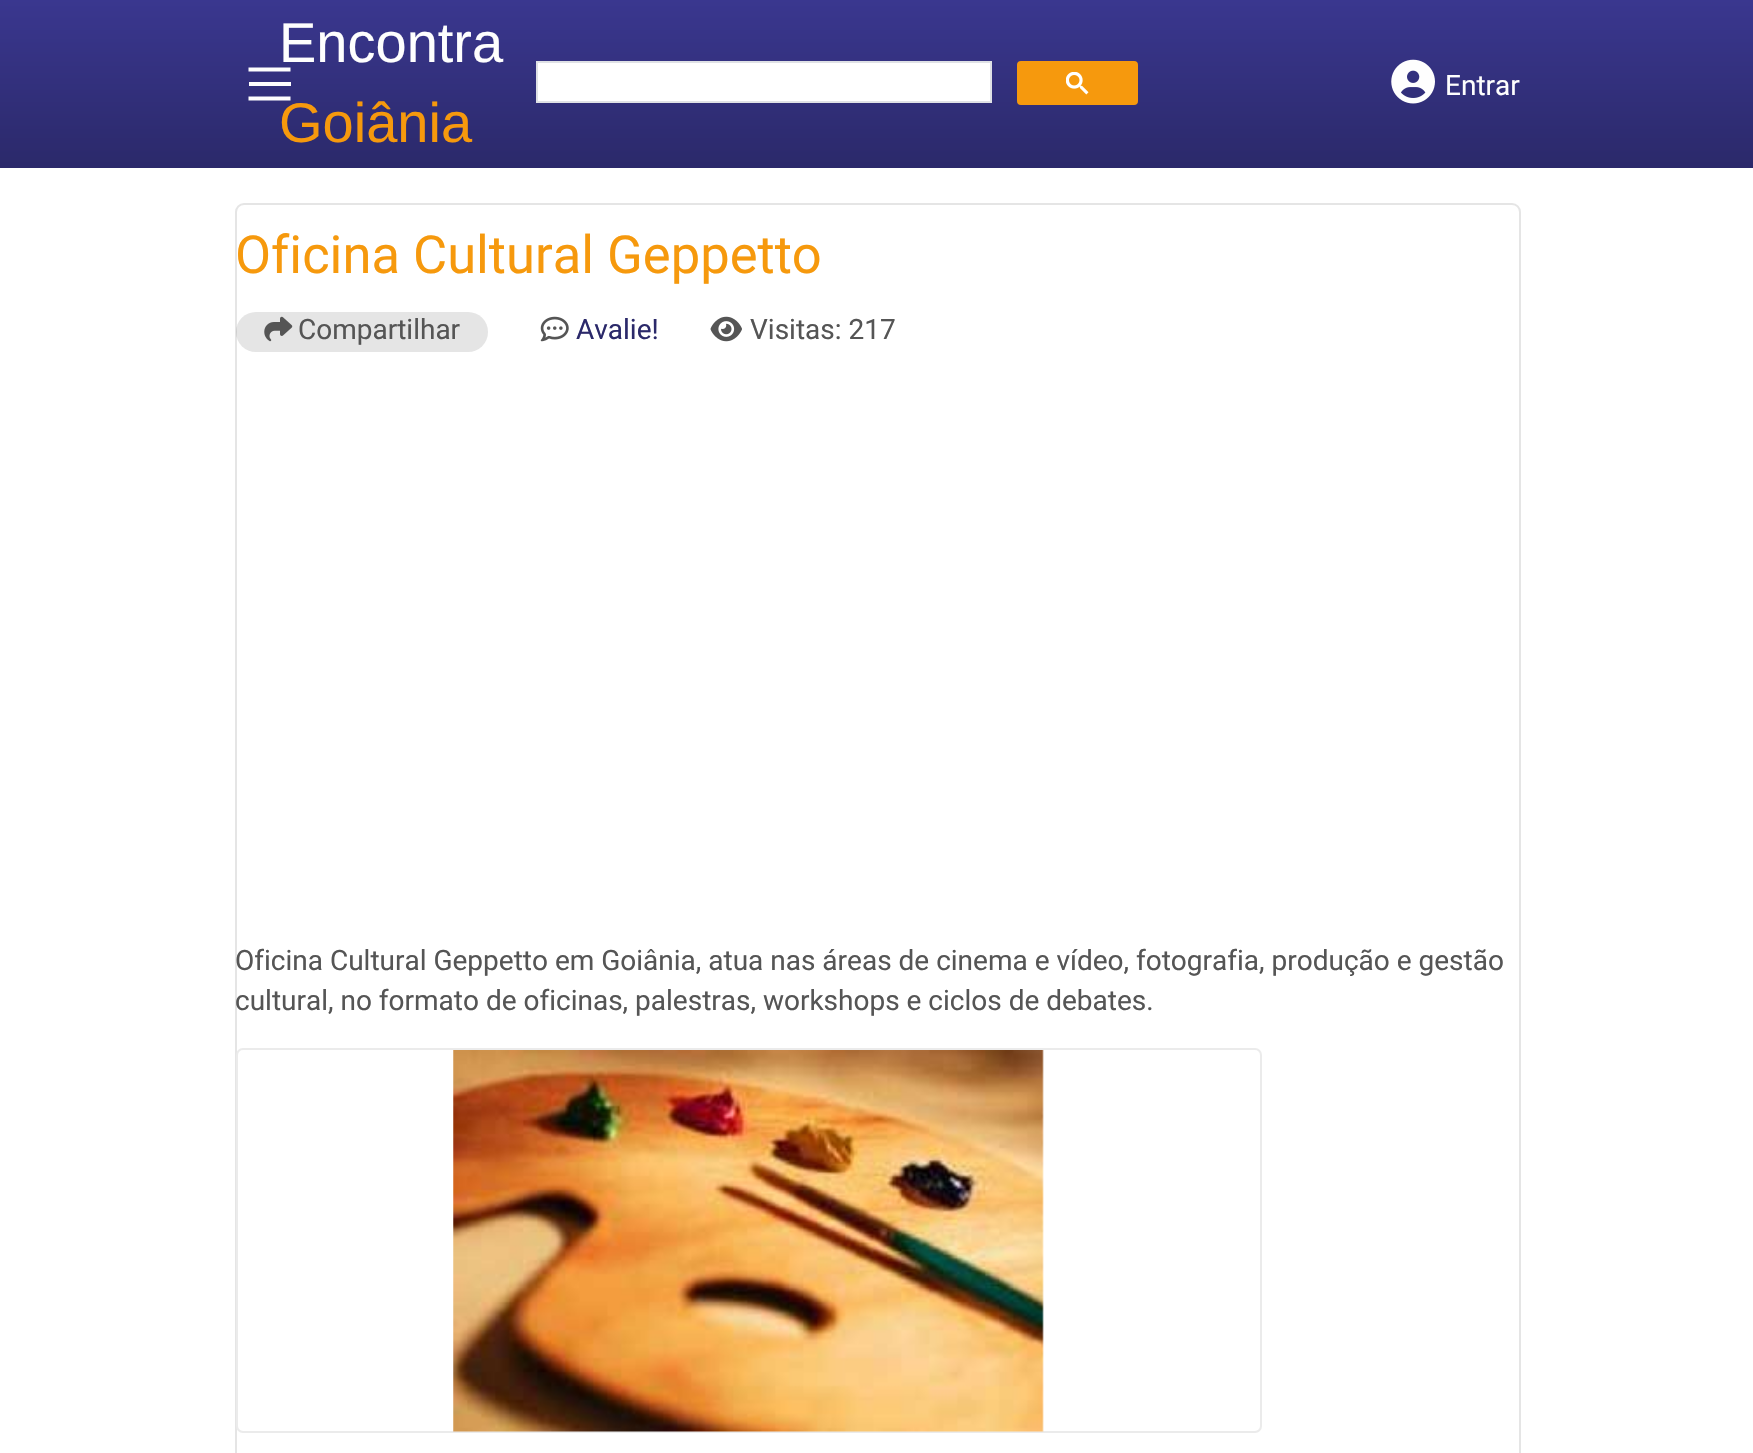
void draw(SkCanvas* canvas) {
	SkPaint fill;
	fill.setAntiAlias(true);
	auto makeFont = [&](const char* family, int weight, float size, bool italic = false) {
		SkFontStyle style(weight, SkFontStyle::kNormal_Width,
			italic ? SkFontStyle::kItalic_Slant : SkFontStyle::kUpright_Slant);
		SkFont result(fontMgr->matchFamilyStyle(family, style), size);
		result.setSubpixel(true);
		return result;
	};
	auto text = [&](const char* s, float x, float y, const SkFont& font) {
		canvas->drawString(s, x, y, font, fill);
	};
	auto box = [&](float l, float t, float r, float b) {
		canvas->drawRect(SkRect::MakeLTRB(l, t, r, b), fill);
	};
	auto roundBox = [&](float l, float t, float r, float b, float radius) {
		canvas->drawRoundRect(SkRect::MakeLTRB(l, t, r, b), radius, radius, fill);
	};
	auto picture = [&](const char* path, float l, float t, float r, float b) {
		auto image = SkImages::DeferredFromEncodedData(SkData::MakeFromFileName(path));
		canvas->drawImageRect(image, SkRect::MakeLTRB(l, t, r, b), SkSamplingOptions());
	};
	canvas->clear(0xFFFFFFFF);
	{
		const SkColor colors[] = {0xFF3A378F, 0xFF2B296A};
		const float stops[] = {0, 1};
		const SkPoint ends[] = {{877, 0}, {877, 168}};
		fill.setShader(SkGradientShader::MakeLinear(ends, colors, stops, 2, SkTileMode::kClamp));
		fill.setAlpha(255);
	}
	box(0, 0, 1753, 168);
	fill.setStyle(SkPaint::kStroke_Style);
	fill.setStrokeWidth(4.2f);
	fill.setShader(nullptr);
	fill.setColor(0xFFFEFEFE);
	canvas->drawPath(SkPathBuilder().moveTo(248.5f, 69.5f).lineTo(290.5f, 69.5f).detach(), fill);
	fill.setStyle(SkPaint::kFill_Style);
	box(249, 82, 291, 86);
	fill.setStyle(SkPaint::kStroke_Style);
	canvas->drawPath(SkPathBuilder().moveTo(248.5f, 98.5f).lineTo(290.5f, 98.5f).detach(), fill);
	fill.setStyle(SkPaint::kFill_Style);
	fill.setColor(0xFFFFFFFF);
	canvas->drawRect(SkRect::MakeLTRB(537, 62, 991, 102), fill);
	fill.setStyle(SkPaint::kStroke_Style);
	fill.setStrokeWidth(2);
	fill.setColor(0xFFDFE1E5);
	canvas->drawRect(SkRect::MakeLTRB(537, 62, 991, 102), fill);
	fill.setStyle(SkPaint::kFill_Style);
	fill.setColor(0xFFF6990D);
	canvas->drawRoundRect(SkRect::MakeLTRB(1018, 62, 1137, 104), 3, 3, fill);
	fill.setStyle(SkPaint::kStroke_Style);
	canvas->drawRoundRect(SkRect::MakeLTRB(1018, 62, 1137, 104), 3, 3, fill);
	picture("image0.png", 1066, 72, 1089, 95);
	picture("image1.png", 1391, 59, 1435, 104);
	fill.setColor(0x1A000000);
	canvas->drawRoundRect(SkRect::MakeLTRB(236, 204, 1520, 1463), 8, 8, fill);
	fill.setStyle(SkPaint::kFill_Style);
	roundBox(236, 312, 488, 352, 20);
	picture("image2.png", 264, 316, 293, 342);
	picture("image3.png", 540, 316, 569, 342);
	picture("image4.png", 710, 316, 742, 342);
	fill.setStyle(SkPaint::kStroke_Style);
	fill.setColor(0xFFEBEBEB);
	canvas->drawRoundRect(SkRect::MakeLTRB(237, 1049, 1261, 1432), 6, 6, fill);
	picture("image5.png", 453, 1050, 1044, 1432);
	auto font1 = makeFont("Liberation Sans", 400, 56);
	fill.setStyle(SkPaint::kFill_Style);
	fill.setColor(0xFFFEFEFE);
	text("Encontra", 279, 62, font1);
	fill.setColor(0xFFF6990D);
	text("Goiânia", 279, 142, font1);
	auto font2 = makeFont("Roboto", 400, 28);
	fill.setColor(0xFFFEFEFE);
	text("Entrar", 1445, 95, font2);
	auto font3 = makeFont("Roboto", 400, 52.5f);
	fill.setColor(0xFFF6990D);
	text("Oficina Cultural Geppetto", 235, 273, font3);
	fill.setColor(0xFF555555);
	text("Compartilhar", 298, 339, font2);
	fill.setColor(0xFF2B296A);
	text("Avalie!", 576, 339, font2);
	fill.setColor(0xFF555555);
	text("Visitas: 217", 750, 339, font2);
	text("Oficina Cultural Geppetto em Goiânia, atua nas áreas de cinema e vídeo, fotografia, produção e gestão", 235, 970, font2);
	text("cultural, no formato de oficinas, palestras, workshops e ciclos de debates.", 235, 1010, font2);
}
